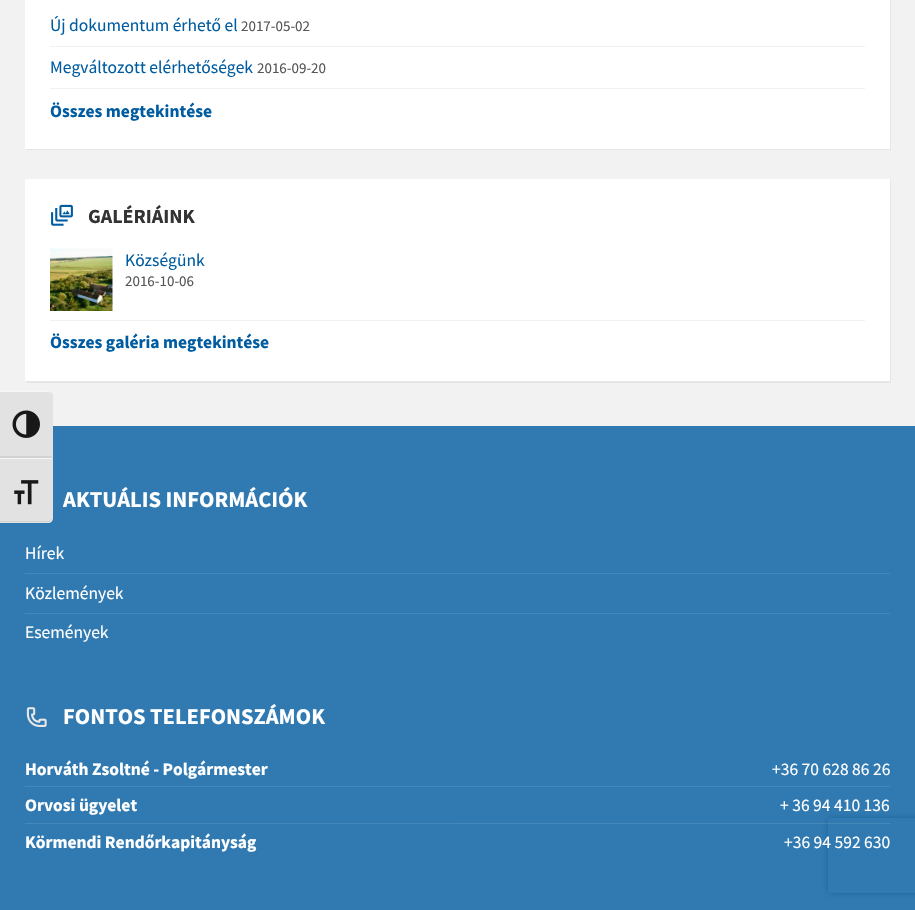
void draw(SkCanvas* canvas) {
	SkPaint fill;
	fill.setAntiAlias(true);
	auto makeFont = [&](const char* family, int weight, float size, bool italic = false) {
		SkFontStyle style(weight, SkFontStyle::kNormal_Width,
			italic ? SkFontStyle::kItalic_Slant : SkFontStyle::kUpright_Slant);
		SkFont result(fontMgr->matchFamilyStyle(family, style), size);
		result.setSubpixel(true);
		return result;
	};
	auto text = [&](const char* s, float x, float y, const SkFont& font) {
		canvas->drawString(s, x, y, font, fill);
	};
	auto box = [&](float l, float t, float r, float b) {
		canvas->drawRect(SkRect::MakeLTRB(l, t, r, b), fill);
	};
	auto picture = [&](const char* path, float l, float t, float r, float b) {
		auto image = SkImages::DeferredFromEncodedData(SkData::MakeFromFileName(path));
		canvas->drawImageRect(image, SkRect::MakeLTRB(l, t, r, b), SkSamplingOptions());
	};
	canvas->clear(0xFFF2F2F2);
	fill.setColor(0xFF307AB1);
	box(0, 426, 915, 910);
	fill.setColor(0xFFE6E6E6);
	canvas->drawPath(SkPathBuilder().moveTo(26, 149).lineTo(26, 150).lineTo(891, 150).lineTo(891, -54).lineTo(890, -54).lineTo(890, 149).close().detach(), fill);
	fill.setColor(0xFFFFFFFF);
	box(25, 0, 890, 149);
	fill.setColor(0xFFF0F0F0);
	box(50, 46, 865, 47);
	box(50, 88, 865, 89);
	fill.setColor(0xFFE6E6E6);
	canvas->drawPath(SkPathBuilder().moveTo(26, 381).lineTo(26, 383).lineTo(891, 383).lineTo(891, 180).lineTo(890, 180).lineTo(890, 381).close().detach(), fill);
	fill.setColor(0xFFFFFFFF);
	box(25, 179, 890, 381);
	picture("image0.png", 51, 204, 73, 226);
	picture("image1.png", 50, 248, 113, 311);
	fill.setColor(0xFFF0F0F0);
	box(50, 320, 865, 321);
	fill.setColor(0xFFE2E2E2);
	canvas->drawPath(SkPathBuilder().moveTo(0, 391).lineTo(48, 391).cubicTo(51, 391, 53, 393, 53, 396).lineTo(53, 458).lineTo(0, 458).close().detach(), fill);
	fill.setColor(0xFFF5F5F5);
	canvas->drawPath(SkPathBuilder().moveTo(0, 392).lineTo(48, 392).cubicTo(50, 392, 52, 394, 52, 396).cubicTo(52, 394, 51, 392, 49, 391).lineTo(0, 391).close().detach(), fill);
	fill.setColor(0xFFD2D2D2);
	box(0, 456, 52, 458);
	picture("image2.png", 12, 410, 40, 438);
	fill.setColor(0xFFE2E2E2);
	canvas->drawPath(SkPathBuilder().moveTo(0, 458).lineTo(53, 458).lineTo(53, 518).cubicTo(53, 521, 51, 523, 48, 523).lineTo(0, 523).close().detach(), fill);
	fill.setColor(0xFFF5F5F5);
	box(0, 458, 52, 459);
	fill.setColor(0xFFD2D2D2);
	canvas->drawPath(SkPathBuilder().moveTo(48, 522).cubicTo(50, 522, 52, 520, 52, 518).cubicTo(52, 520, 50, 521, 48, 521).lineTo(0, 521).lineTo(0, 522).close().detach(), fill);
	picture("image3.png", 14, 480, 39, 505);
	fill.setColor(0xFF4587B9);
	box(25, 573, 890, 574);
	box(25, 613, 890, 614);
	picture("image4.png", 26, 707, 47, 727);
	box(25, 786, 890, 787);
	box(25, 823, 458, 824);
	canvas->save();
	canvas->clipPath(SkPathBuilder(SkPathFillType::kEvenOdd).moveTo(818, 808).lineTo(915, 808).lineTo(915, 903).lineTo(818, 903).close().moveTo(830.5f, 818).lineTo(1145.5f, 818).cubicTo(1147, 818, 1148, 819, 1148, 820.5f).lineTo(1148, 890.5f).cubicTo(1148, 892, 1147, 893, 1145.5f, 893).lineTo(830.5f, 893).cubicTo(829, 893, 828, 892, 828, 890.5f).lineTo(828, 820.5f).cubicTo(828, 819, 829, 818, 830.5f, 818).close().detach(), true);
	fill.setColor(0xFF1A639A);
	fill.setMaskFilter(SkMaskFilter::MakeBlur(kNormal_SkBlurStyle, 3));
	canvas->drawRoundRect(SkRect::MakeLTRB(828, 818, 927, 893), 2.5f, 2.5f, fill);
	fill.setMaskFilter(nullptr);
	canvas->restore();
	fill.setColor(0x1AFFFFFF);
	box(458, 823, 890, 824);
	auto font1 = makeFont("Source Sans Pro", 400, 17.5f);
	fill.setColor(0xFF005CA1);
	text("Új dokumentum érhető el", 50, 31, font1);
	auto font2 = makeFont("Source Sans Pro", 400, 15);
	fill.setColor(0xFF565656);
	text("2017-05-02", 241, 31, font2);
	fill.setColor(0xFF005CA1);
	text("Megváltozott elérhetőségek", 50, 73, font1);
	fill.setColor(0xFF565656);
	text("2016-09-20", 257, 73, font2);
	auto font3 = makeFont("Source Sans Pro", 700, 17.5f);
	fill.setColor(0xFF005CA1);
	text("Összes megtekintése", 50, 117, font3);
	auto font4 = makeFont("Source Sans Pro", 700, 20);
	fill.setColor(0xFF333333);
	text("GALÉRIÁINK", 88, 223, font4);
	fill.setColor(0xFF005CA1);
	text("Községünk", 125, 266, font1);
	fill.setColor(0xFF565656);
	text("2016-10-06", 125, 286, font2);
	fill.setColor(0xFF005CA1);
	text("Összes galéria megtekintése", 50, 348, font3);
	auto font5 = makeFont("Source Sans Pro", 700, 22.5f);
	fill.setColor(0xFFFFFFFF);
	text("AKTUÁLIS INFORMÁCIÓK", 63, 507, font5);
	text("Hírek", 25, 559, font1);
	text("Közlemények", 25, 599, font1);
	text("Események", 25, 638, font1);
	text("FONTOS TELEFONSZÁMOK", 63, 724, font5);
	text("Horváth Zsoltné - Polgármester", 25, 775, font3);
	text("+36 70 628 86 26", 772, 775, font1);
	text("Orvosi ügyelet", 25, 811, font3);
	text("+ 36 94 410 136", 780, 811, font1);
	text("Körmendi Rendőrkapitányság", 25, 848, font3);
	text("+36 94 592 630", 784, 848, font1);
}
